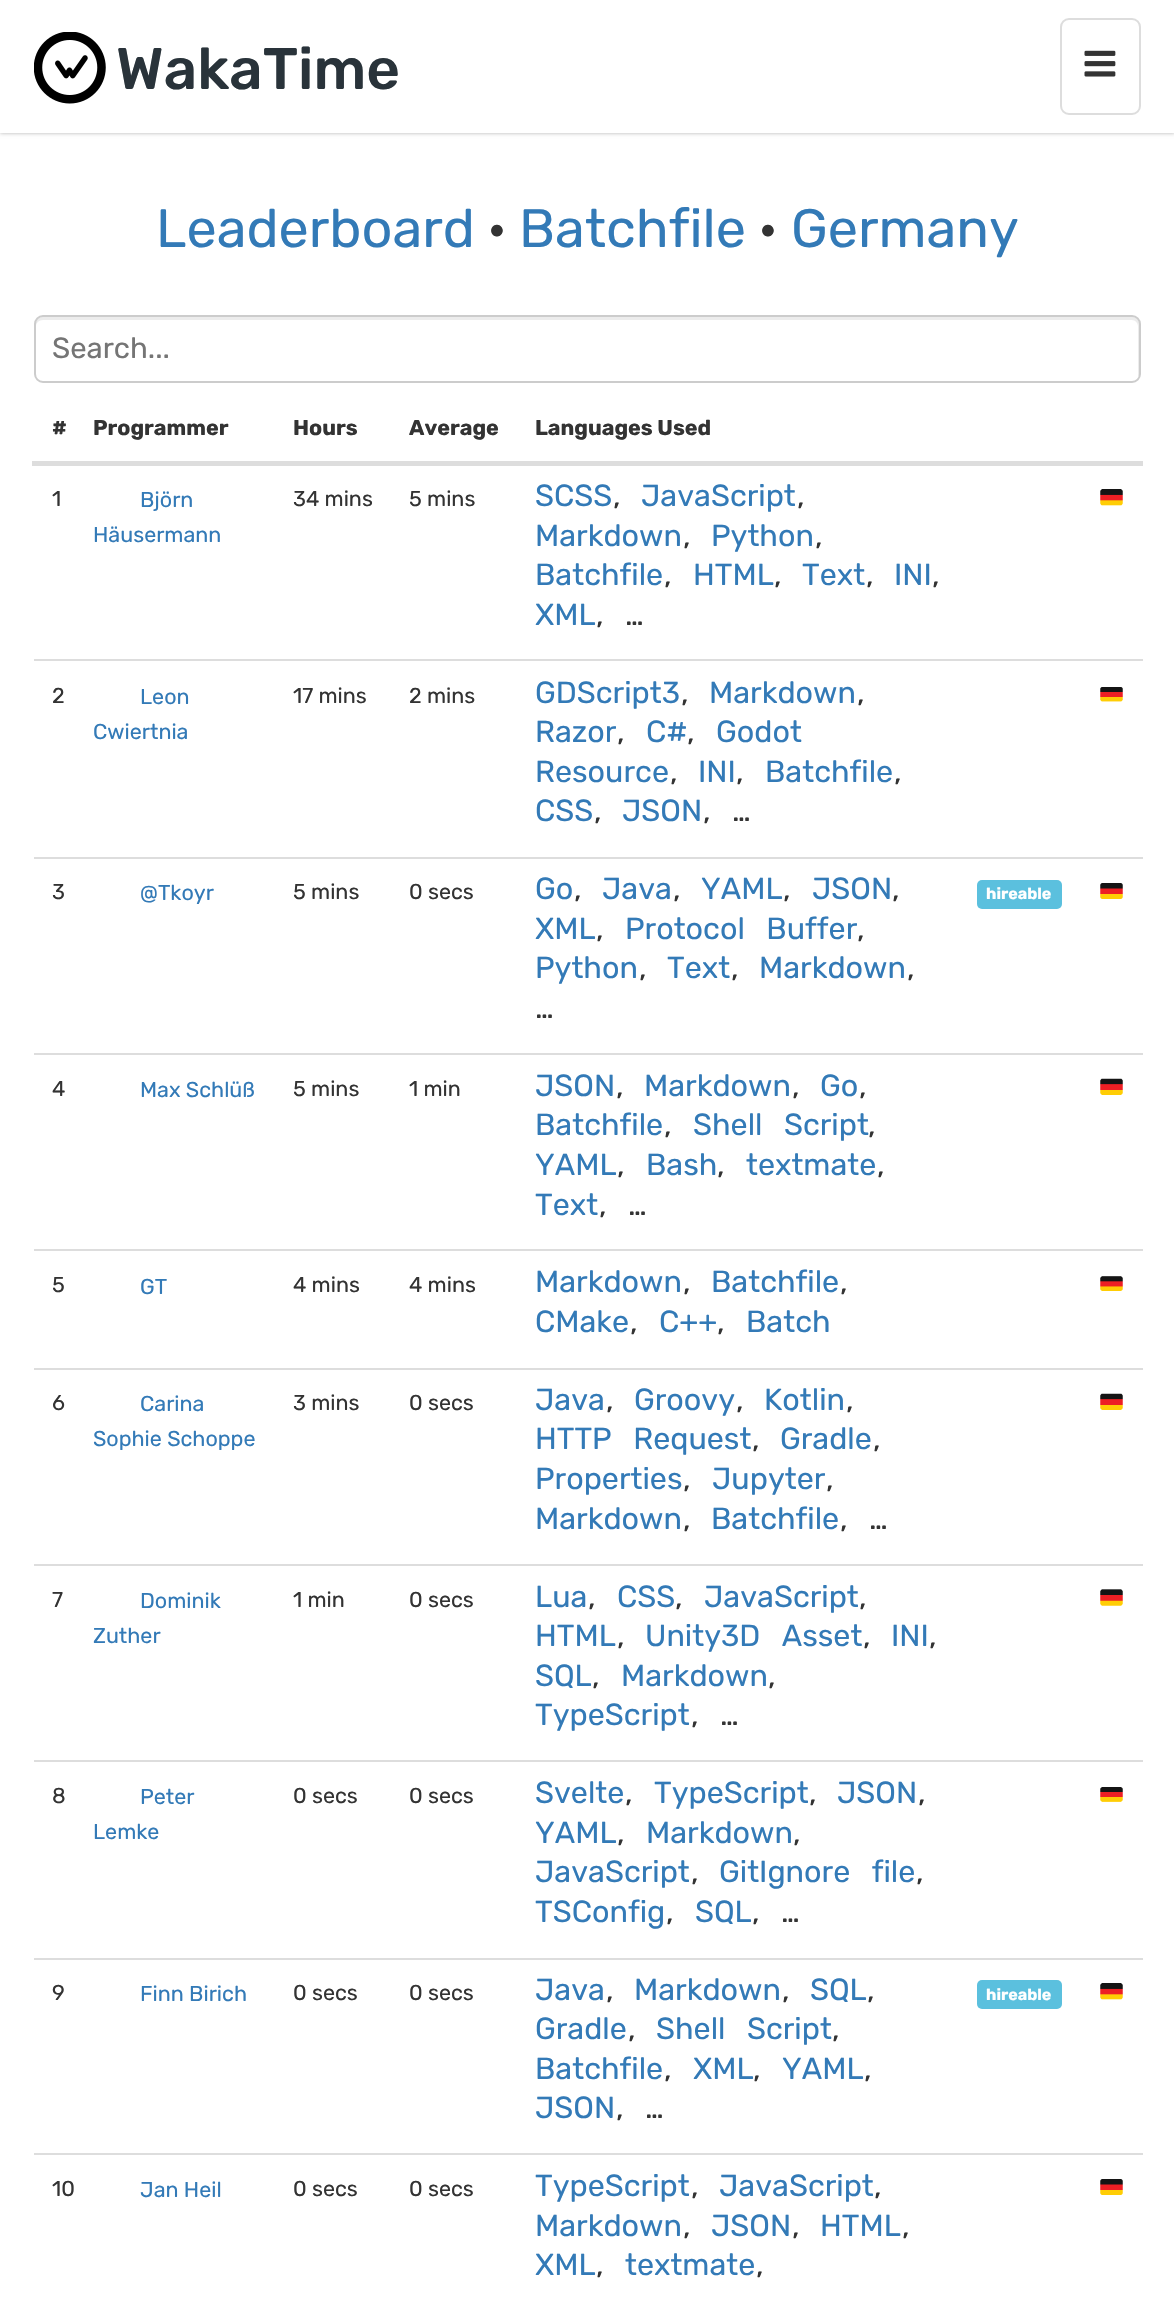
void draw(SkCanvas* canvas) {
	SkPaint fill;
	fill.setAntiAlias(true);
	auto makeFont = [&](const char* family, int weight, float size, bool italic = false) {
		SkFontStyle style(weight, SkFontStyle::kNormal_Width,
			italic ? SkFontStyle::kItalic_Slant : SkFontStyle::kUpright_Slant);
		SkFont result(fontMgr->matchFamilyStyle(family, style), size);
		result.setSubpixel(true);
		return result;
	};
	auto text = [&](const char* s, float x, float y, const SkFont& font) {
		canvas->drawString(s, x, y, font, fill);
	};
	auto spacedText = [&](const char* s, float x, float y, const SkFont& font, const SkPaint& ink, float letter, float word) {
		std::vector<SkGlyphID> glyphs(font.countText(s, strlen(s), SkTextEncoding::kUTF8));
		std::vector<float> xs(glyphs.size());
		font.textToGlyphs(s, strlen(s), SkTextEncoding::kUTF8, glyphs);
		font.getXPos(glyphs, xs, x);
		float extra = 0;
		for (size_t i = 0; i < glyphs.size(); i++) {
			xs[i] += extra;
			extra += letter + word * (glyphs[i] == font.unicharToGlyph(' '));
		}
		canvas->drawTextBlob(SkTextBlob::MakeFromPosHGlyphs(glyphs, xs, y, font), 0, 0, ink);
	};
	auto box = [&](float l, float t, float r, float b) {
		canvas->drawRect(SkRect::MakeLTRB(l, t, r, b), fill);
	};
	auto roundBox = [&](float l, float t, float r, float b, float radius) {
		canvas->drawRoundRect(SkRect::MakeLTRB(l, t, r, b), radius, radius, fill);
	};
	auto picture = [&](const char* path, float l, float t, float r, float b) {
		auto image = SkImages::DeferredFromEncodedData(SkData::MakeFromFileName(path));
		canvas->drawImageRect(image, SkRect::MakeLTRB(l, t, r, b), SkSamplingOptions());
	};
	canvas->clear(0xFFFFFFFF);
	fill.setColor(0x4D000000);
	fill.setMaskFilter(SkMaskFilter::MakeBlur(kNormal_SkBlurStyle, 2));
	canvas->drawRect(SkRect::MakeLTRB(0, 0, 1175, 133), fill);
	fill.setMaskFilter(nullptr);
	fill.setColor(0xFFFFFFFF);
	box(0, 0, 1174, 133);
	picture("image0.png", 34, 32, 106, 104);
	fill.setStyle(SkPaint::kStroke_Style);
	fill.setStrokeWidth(2);
	fill.setColor(0xFFDDDDDD);
	canvas->drawRoundRect(SkRect::MakeLTRB(1061, 19, 1140, 114), 8, 8, fill);
	picture("image1.png", 1084, 50, 1116, 77);
	fill.setStyle(SkPaint::kFill_Style);
	fill.setColor(0xFFECECEC);
	canvas->drawPath(SkPathBuilder().moveTo(43, 320).lineTo(1132, 320).cubicTo(1135, 320, 1138, 323, 1138, 326).lineTo(1138, 377).cubicTo(1139, 376, 1139, 374, 1139, 373).lineTo(1139, 324).cubicTo(1139, 320, 1136, 317, 1132, 317).lineTo(43, 317).cubicTo(39, 317, 36, 320, 36, 324).lineTo(36, 326).cubicTo(36, 323, 39, 320, 43, 320).close().detach(), fill);
	fill.setStyle(SkPaint::kStroke_Style);
	fill.setColor(0xFFCCCCCC);
	canvas->drawRoundRect(SkRect::MakeLTRB(35, 316, 1140, 382), 8, 8, fill);
	fill.setStyle(SkPaint::kFill_Style);
	fill.setColor(0xFFDDDDDD);
	box(32, 461, 1143, 466);
	picture("image2.png", 1100, 489, 1123, 506);
	box(34, 659, 1143, 661);
	picture("image3.png", 1100, 687, 1123, 702);
	box(34, 857, 1143, 859);
	picture("image4.png", 1100, 883, 1123, 899);
	fill.setColor(0xFF5BC0DE);
	roundBox(977, 880, 1062, 909, 5);
	fill.setColor(0xFFDDDDDD);
	box(34, 1053, 1143, 1055);
	picture("image5.png", 1100, 1078, 1123, 1095);
	box(34, 1249, 1143, 1251);
	picture("image6.png", 1100, 1276, 1123, 1291);
	box(34, 1368, 1143, 1370);
	picture("image5.png", 1100, 1393, 1123, 1410);
	box(34, 1564, 1143, 1566);
	picture("image7.png", 1100, 1589, 1123, 1606);
	box(34, 1760, 1143, 1762);
	picture("image8.png", 1100, 1787, 1123, 1802);
	box(34, 1958, 1143, 1960);
	picture("image2.png", 1100, 1983, 1123, 2000);
	fill.setColor(0xFF5BC0DE);
	roundBox(977, 1980, 1062, 2009, 5);
	fill.setColor(0xFFDDDDDD);
	box(34, 2153, 1143, 2155);
	picture("image4.png", 1100, 2179, 1123, 2195);
	auto font1 = makeFont("Rubik", 500, 58.5f);
	fill.setColor(0xFF29333A);
	text("WakaTime", 116, 89, font1);
	auto font2 = makeFont("Rubik", 400, 54);
	fill.setColor(0xFF337AB7);
	text("Leaderboard", 156, 247, font2);
	fill.setColor(0xFF333333);
	text("·", 488, 247, font2);
	fill.setColor(0xFF337AB7);
	text("Batchfile", 519, 247, font2);
	fill.setColor(0xFF333333);
	text("·", 759, 247, font2);
	fill.setColor(0xFF337AB7);
	text("Germany", 791, 247, font2);
	auto font3 = makeFont("Rubik", 400, 29.25f);
	fill.setColor(0xFF757575);
	text("Search...", 52, 358, font3);
	auto font4 = makeFont("Rubik", 700, 21.5f);
	fill.setColor(0xFF333333);
	text("#", 52, 435, font4);
	text("Programmer", 93, 435, font4);
	text("Hours", 293, 435, font4);
	text("Average", 409, 435, font4);
	text("Languages Used", 535, 435, font4);
	auto font5 = makeFont("Rubik", 400, 21.5f);
	text("1", 52, 506, font5);
	fill.setColor(0xFF337AB7);
	text("Björn", 140, 507, font5);
	text("Häusermann", 93, 542, font5);
	fill.setColor(0xFF333333);
	text("34 mins", 293, 506, font5);
	text("5 mins", 409, 506, font5);
	auto font6 = makeFont("Rubik", 400, 30.5f);
	fill.setColor(0xFF337AB7);
	text("SCSS", 535, 506, font6);
	fill.setColor(0xFF333333);
	text(",", 613, 506, font6);
	fill.setColor(0xFF337AB7);
	text("JavaScript", 641, 506, font6);
	fill.setColor(0xFF333333);
	text(",", 797, 506, font6);
	fill.setColor(0xFF337AB7);
	text("Markdown", 535, 546, font6);
	fill.setColor(0xFF333333);
	text(",", 683, 546, font6);
	fill.setColor(0xFF337AB7);
	text("Python", 711, 546, font6);
	fill.setColor(0xFF333333);
	text(",", 815, 546, font6);
	fill.setColor(0xFF337AB7);
	text("Batchfile", 535, 585, font6);
	fill.setColor(0xFF333333);
	text(",", 664, 585, font6);
	fill.setColor(0xFF337AB7);
	text("HTML", 693, 585, font6);
	fill.setColor(0xFF333333);
	text(",", 774, 585, font6);
	fill.setColor(0xFF337AB7);
	text("Text", 802, 585, font6);
	fill.setColor(0xFF333333);
	text(",", 866, 585, font6);
	fill.setColor(0xFF337AB7);
	text("INI", 894, 585, font6);
	fill.setColor(0xFF333333);
	text(",", 932, 585, font6);
	fill.setColor(0xFF337AB7);
	text("XML", 535, 625, font6);
	fill.setColor(0xFF333333);
	spacedText(", …", 596, 625, font6, fill, 0, 14);
	text("2", 52, 703, font5);
	fill.setColor(0xFF337AB7);
	text("Leon", 140, 704, font5);
	text("Cwiertnia", 93, 739, font5);
	fill.setColor(0xFF333333);
	text("17 mins", 293, 703, font5);
	text("2 mins", 409, 703, font5);
	fill.setColor(0xFF337AB7);
	text("GDScript3", 535, 703, font6);
	fill.setColor(0xFF333333);
	text(",", 681, 703, font6);
	fill.setColor(0xFF337AB7);
	text("Markdown", 709, 703, font6);
	fill.setColor(0xFF333333);
	text(",", 857, 703, font6);
	fill.setColor(0xFF337AB7);
	text("Razor", 535, 742, font6);
	fill.setColor(0xFF333333);
	text(",", 617, 742, font6);
	fill.setColor(0xFF337AB7);
	text("C#", 646, 742, font6);
	fill.setColor(0xFF333333);
	text(",", 687, 742, font6);
	fill.setColor(0xFF337AB7);
	text("Godot", 716, 742, font6);
	text("Resource", 535, 782, font6);
	fill.setColor(0xFF333333);
	text(",", 670, 782, font6);
	fill.setColor(0xFF337AB7);
	text("INI", 698, 782, font6);
	fill.setColor(0xFF333333);
	text(",", 736, 782, font6);
	fill.setColor(0xFF337AB7);
	text("Batchfile", 765, 782, font6);
	fill.setColor(0xFF333333);
	text(",", 894, 782, font6);
	fill.setColor(0xFF337AB7);
	text("CSS", 535, 821, font6);
	fill.setColor(0xFF333333);
	text(",", 594, 821, font6);
	fill.setColor(0xFF337AB7);
	text("JSON", 622, 821, font6);
	fill.setColor(0xFF333333);
	spacedText(", …", 703, 821, font6, fill, 0, 14);
	text("3", 52, 899, font5);
	fill.setColor(0xFF337AB7);
	text("@Tkoyr", 140, 900, font5);
	fill.setColor(0xFF333333);
	text("5 mins", 293, 899, font5);
	text("0 secs", 409, 899, font5);
	fill.setColor(0xFF337AB7);
	text("Go", 535, 899, font6);
	fill.setColor(0xFF333333);
	text(",", 574, 899, font6);
	fill.setColor(0xFF337AB7);
	text("Java", 602, 899, font6);
	fill.setColor(0xFF333333);
	text(",", 673, 899, font6);
	fill.setColor(0xFF337AB7);
	text("YAML", 701, 899, font6);
	fill.setColor(0xFF333333);
	text(",", 783, 899, font6);
	fill.setColor(0xFF337AB7);
	text("JSON", 812, 899, font6);
	fill.setColor(0xFF333333);
	text(",", 892, 899, font6);
	fill.setColor(0xFF337AB7);
	text("XML", 535, 939, font6);
	fill.setColor(0xFF333333);
	text(",", 596, 939, font6);
	fill.setColor(0xFF337AB7);
	spacedText("Protocol Buffer", 625, 939, font6, fill, 0, 14);
	fill.setColor(0xFF333333);
	text(",", 857, 939, font6);
	fill.setColor(0xFF337AB7);
	text("Python", 535, 978, font6);
	fill.setColor(0xFF333333);
	text(",", 639, 978, font6);
	fill.setColor(0xFF337AB7);
	text("Text", 667, 978, font6);
	fill.setColor(0xFF333333);
	text(",", 731, 978, font6);
	fill.setColor(0xFF337AB7);
	text("Markdown", 759, 978, font6);
	fill.setColor(0xFF333333);
	text(",", 907, 978, font6);
	text("…", 535, 1018, font6);
	auto font7 = makeFont("Rubik", 700, 16);
	fill.setColor(0xFFFFFFFF);
	text("hireable", 986, 899, font7);
	fill.setColor(0xFF333333);
	text("4", 52, 1096, font5);
	fill.setColor(0xFF337AB7);
	text("Max Schlüß", 140, 1097, font5);
	fill.setColor(0xFF333333);
	text("5 mins", 293, 1096, font5);
	text("1 min", 409, 1096, font5);
	fill.setColor(0xFF337AB7);
	text("JSON", 535, 1096, font6);
	fill.setColor(0xFF333333);
	text(",", 616, 1096, font6);
	fill.setColor(0xFF337AB7);
	text("Markdown", 644, 1096, font6);
	fill.setColor(0xFF333333);
	text(",", 792, 1096, font6);
	fill.setColor(0xFF337AB7);
	text("Go", 820, 1096, font6);
	fill.setColor(0xFF333333);
	text(",", 859, 1096, font6);
	fill.setColor(0xFF337AB7);
	text("Batchfile", 535, 1135, font6);
	fill.setColor(0xFF333333);
	text(",", 664, 1135, font6);
	fill.setColor(0xFF337AB7);
	spacedText("Shell Script", 693, 1135, font6, fill, 0, 14);
	fill.setColor(0xFF333333);
	text(",", 868, 1135, font6);
	fill.setColor(0xFF337AB7);
	text("YAML", 535, 1175, font6);
	fill.setColor(0xFF333333);
	text(",", 617, 1175, font6);
	fill.setColor(0xFF337AB7);
	text("Bash", 646, 1175, font6);
	fill.setColor(0xFF333333);
	text(",", 717, 1175, font6);
	fill.setColor(0xFF337AB7);
	text("textmate", 746, 1175, font6);
	fill.setColor(0xFF333333);
	text(",", 877, 1175, font6);
	fill.setColor(0xFF337AB7);
	text("Text", 535, 1215, font6);
	fill.setColor(0xFF333333);
	spacedText(", …", 599, 1215, font6, fill, 0, 14);
	text("5", 52, 1292, font5);
	fill.setColor(0xFF337AB7);
	text("GT", 140, 1294, font5);
	fill.setColor(0xFF333333);
	text("4 mins", 293, 1292, font5);
	text("4 mins", 409, 1292, font5);
	fill.setColor(0xFF337AB7);
	text("Markdown", 535, 1292, font6);
	fill.setColor(0xFF333333);
	text(",", 683, 1292, font6);
	fill.setColor(0xFF337AB7);
	text("Batchfile", 711, 1292, font6);
	fill.setColor(0xFF333333);
	text(",", 840, 1292, font6);
	fill.setColor(0xFF337AB7);
	text("CMake", 535, 1332, font6);
	fill.setColor(0xFF333333);
	text(",", 630, 1332, font6);
	fill.setColor(0xFF337AB7);
	text("C++", 659, 1332, font6);
	fill.setColor(0xFF333333);
	text(",", 717, 1332, font6);
	fill.setColor(0xFF337AB7);
	text("Batch", 746, 1332, font6);
	fill.setColor(0xFF333333);
	text("6", 52, 1410, font5);
	fill.setColor(0xFF337AB7);
	text("Carina", 140, 1411, font5);
	text("Sophie Schoppe", 93, 1446, font5);
	fill.setColor(0xFF333333);
	text("3 mins", 293, 1410, font5);
	text("0 secs", 409, 1410, font5);
	fill.setColor(0xFF337AB7);
	text("Java", 535, 1410, font6);
	fill.setColor(0xFF333333);
	text(",", 606, 1410, font6);
	fill.setColor(0xFF337AB7);
	text("Groovy", 634, 1410, font6);
	fill.setColor(0xFF333333);
	text(",", 736, 1410, font6);
	fill.setColor(0xFF337AB7);
	text("Kotlin", 764, 1410, font6);
	fill.setColor(0xFF333333);
	text(",", 846, 1410, font6);
	fill.setColor(0xFF337AB7);
	spacedText("HTTP Request", 535, 1449, font6, fill, 0, 14);
	fill.setColor(0xFF333333);
	text(",", 752, 1449, font6);
	fill.setColor(0xFF337AB7);
	text("Gradle", 780, 1449, font6);
	fill.setColor(0xFF333333);
	text(",", 873, 1449, font6);
	fill.setColor(0xFF337AB7);
	text("Properties", 535, 1489, font6);
	fill.setColor(0xFF333333);
	text(",", 683, 1489, font6);
	fill.setColor(0xFF337AB7);
	text("Jupyter", 712, 1489, font6);
	fill.setColor(0xFF333333);
	text(",", 826, 1489, font6);
	fill.setColor(0xFF337AB7);
	text("Markdown", 535, 1529, font6);
	fill.setColor(0xFF333333);
	text(",", 683, 1529, font6);
	fill.setColor(0xFF337AB7);
	text("Batchfile", 711, 1529, font6);
	fill.setColor(0xFF333333);
	spacedText(", …", 840, 1529, font6, fill, 0, 14);
	text("7", 52, 1607, font5);
	fill.setColor(0xFF337AB7);
	text("Dominik", 140, 1608, font5);
	text("Zuther", 93, 1643, font5);
	fill.setColor(0xFF333333);
	text("1 min", 293, 1607, font5);
	text("0 secs", 409, 1607, font5);
	fill.setColor(0xFF337AB7);
	text("Lua", 535, 1607, font6);
	fill.setColor(0xFF333333);
	text(",", 588, 1607, font6);
	fill.setColor(0xFF337AB7);
	text("CSS", 617, 1607, font6);
	fill.setColor(0xFF333333);
	text(",", 675, 1607, font6);
	fill.setColor(0xFF337AB7);
	text("JavaScript", 704, 1607, font6);
	fill.setColor(0xFF333333);
	text(",", 859, 1607, font6);
	fill.setColor(0xFF337AB7);
	text("HTML", 535, 1646, font6);
	fill.setColor(0xFF333333);
	text(",", 617, 1646, font6);
	fill.setColor(0xFF337AB7);
	spacedText("Unity3D Asset", 645, 1646, font6, fill, 0, 14);
	fill.setColor(0xFF333333);
	text(",", 863, 1646, font6);
	fill.setColor(0xFF337AB7);
	text("INI", 891, 1646, font6);
	fill.setColor(0xFF333333);
	text(",", 929, 1646, font6);
	fill.setColor(0xFF337AB7);
	text("SQL", 535, 1686, font6);
	fill.setColor(0xFF333333);
	text(",", 592, 1686, font6);
	fill.setColor(0xFF337AB7);
	text("Markdown", 621, 1686, font6);
	fill.setColor(0xFF333333);
	text(",", 768, 1686, font6);
	fill.setColor(0xFF337AB7);
	text("TypeScript", 535, 1725, font6);
	fill.setColor(0xFF333333);
	spacedText(", …", 691, 1725, font6, fill, 0, 14);
	text("8", 52, 1803, font5);
	fill.setColor(0xFF337AB7);
	text("Peter", 140, 1804, font5);
	text("Lemke", 93, 1839, font5);
	fill.setColor(0xFF333333);
	text("0 secs", 293, 1803, font5);
	text("0 secs", 409, 1803, font5);
	fill.setColor(0xFF337AB7);
	text("Svelte", 535, 1803, font6);
	fill.setColor(0xFF333333);
	text(",", 625, 1803, font6);
	fill.setColor(0xFF337AB7);
	text("TypeScript", 654, 1803, font6);
	fill.setColor(0xFF333333);
	text(",", 809, 1803, font6);
	fill.setColor(0xFF337AB7);
	text("JSON", 837, 1803, font6);
	fill.setColor(0xFF333333);
	text(",", 918, 1803, font6);
	fill.setColor(0xFF337AB7);
	text("YAML", 535, 1843, font6);
	fill.setColor(0xFF333333);
	text(",", 617, 1843, font6);
	fill.setColor(0xFF337AB7);
	text("Markdown", 646, 1843, font6);
	fill.setColor(0xFF333333);
	text(",", 793, 1843, font6);
	fill.setColor(0xFF337AB7);
	text("JavaScript", 535, 1882, font6);
	fill.setColor(0xFF333333);
	text(",", 691, 1882, font6);
	fill.setColor(0xFF337AB7);
	spacedText("GitIgnore file", 719, 1882, font6, fill, 0, 14);
	fill.setColor(0xFF333333);
	text(",", 916, 1882, font6);
	fill.setColor(0xFF337AB7);
	text("TSConfig", 535, 1922, font6);
	fill.setColor(0xFF333333);
	text(",", 666, 1922, font6);
	fill.setColor(0xFF337AB7);
	text("SQL", 695, 1922, font6);
	fill.setColor(0xFF333333);
	spacedText(", …", 752, 1922, font6, fill, 0, 14);
	text("9", 52, 2000, font5);
	fill.setColor(0xFF337AB7);
	text("Finn Birich", 140, 2001, font5);
	fill.setColor(0xFF333333);
	text("0 secs", 293, 2000, font5);
	text("0 secs", 409, 2000, font5);
	fill.setColor(0xFF337AB7);
	text("Java", 535, 2000, font6);
	fill.setColor(0xFF333333);
	text(",", 606, 2000, font6);
	fill.setColor(0xFF337AB7);
	text("Markdown", 634, 2000, font6);
	fill.setColor(0xFF333333);
	text(",", 782, 2000, font6);
	fill.setColor(0xFF337AB7);
	text("SQL", 810, 2000, font6);
	fill.setColor(0xFF333333);
	text(",", 867, 2000, font6);
	fill.setColor(0xFF337AB7);
	text("Gradle", 535, 2039, font6);
	fill.setColor(0xFF333333);
	text(",", 628, 2039, font6);
	fill.setColor(0xFF337AB7);
	spacedText("Shell Script", 656, 2039, font6, fill, 0, 14);
	fill.setColor(0xFF333333);
	text(",", 832, 2039, font6);
	fill.setColor(0xFF337AB7);
	text("Batchfile", 535, 2079, font6);
	fill.setColor(0xFF333333);
	text(",", 664, 2079, font6);
	fill.setColor(0xFF337AB7);
	text("XML", 693, 2079, font6);
	fill.setColor(0xFF333333);
	text(",", 753, 2079, font6);
	fill.setColor(0xFF337AB7);
	text("YAML", 782, 2079, font6);
	fill.setColor(0xFF333333);
	text(",", 864, 2079, font6);
	fill.setColor(0xFF337AB7);
	text("JSON", 535, 2118, font6);
	fill.setColor(0xFF333333);
	spacedText(", …", 616, 2118, font6, fill, 0, 14);
	fill.setColor(0xFFFFFFFF);
	text("hireable", 986, 2000, font7);
	fill.setColor(0xFF333333);
	text("10", 52, 2196, font5);
	fill.setColor(0xFF337AB7);
	text("Jan Heil", 140, 2197, font5);
	fill.setColor(0xFF333333);
	text("0 secs", 293, 2196, font5);
	text("0 secs", 409, 2196, font5);
	fill.setColor(0xFF337AB7);
	text("TypeScript", 535, 2196, font6);
	fill.setColor(0xFF333333);
	text(",", 691, 2196, font6);
	fill.setColor(0xFF337AB7);
	text("JavaScript", 719, 2196, font6);
	fill.setColor(0xFF333333);
	text(",", 874, 2196, font6);
	fill.setColor(0xFF337AB7);
	text("Markdown", 535, 2236, font6);
	fill.setColor(0xFF333333);
	text(",", 683, 2236, font6);
	fill.setColor(0xFF337AB7);
	text("JSON", 711, 2236, font6);
	fill.setColor(0xFF333333);
	text(",", 792, 2236, font6);
	fill.setColor(0xFF337AB7);
	text("HTML", 820, 2236, font6);
	fill.setColor(0xFF333333);
	text(",", 902, 2236, font6);
	fill.setColor(0xFF337AB7);
	text("XML", 535, 2275, font6);
	fill.setColor(0xFF333333);
	text(",", 596, 2275, font6);
	fill.setColor(0xFF337AB7);
	text("textmate", 625, 2275, font6);
	fill.setColor(0xFF333333);
	text(",", 756, 2275, font6);
}
